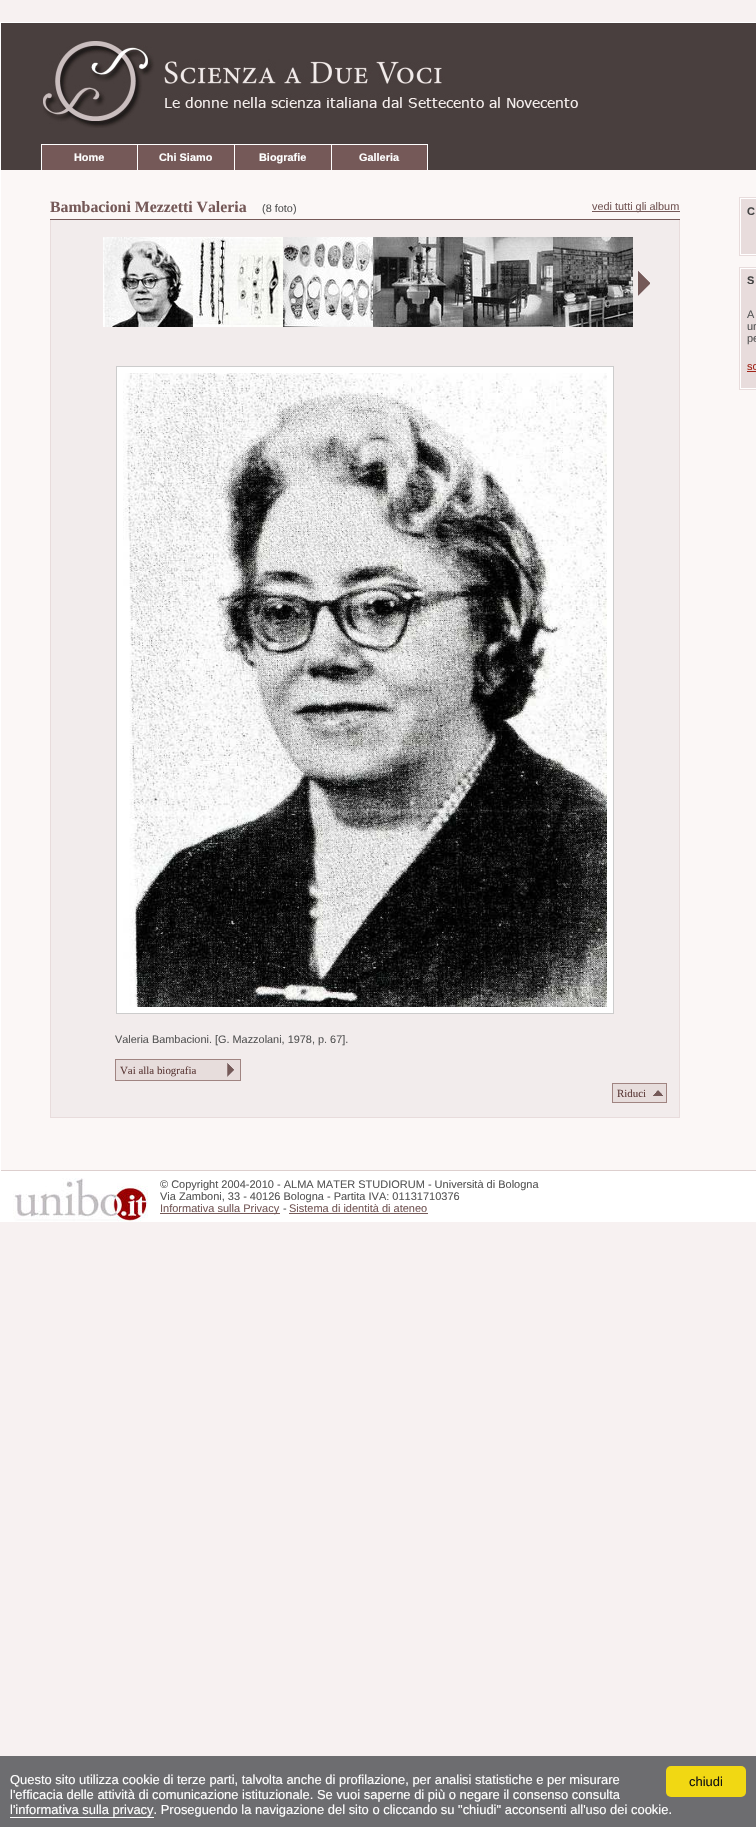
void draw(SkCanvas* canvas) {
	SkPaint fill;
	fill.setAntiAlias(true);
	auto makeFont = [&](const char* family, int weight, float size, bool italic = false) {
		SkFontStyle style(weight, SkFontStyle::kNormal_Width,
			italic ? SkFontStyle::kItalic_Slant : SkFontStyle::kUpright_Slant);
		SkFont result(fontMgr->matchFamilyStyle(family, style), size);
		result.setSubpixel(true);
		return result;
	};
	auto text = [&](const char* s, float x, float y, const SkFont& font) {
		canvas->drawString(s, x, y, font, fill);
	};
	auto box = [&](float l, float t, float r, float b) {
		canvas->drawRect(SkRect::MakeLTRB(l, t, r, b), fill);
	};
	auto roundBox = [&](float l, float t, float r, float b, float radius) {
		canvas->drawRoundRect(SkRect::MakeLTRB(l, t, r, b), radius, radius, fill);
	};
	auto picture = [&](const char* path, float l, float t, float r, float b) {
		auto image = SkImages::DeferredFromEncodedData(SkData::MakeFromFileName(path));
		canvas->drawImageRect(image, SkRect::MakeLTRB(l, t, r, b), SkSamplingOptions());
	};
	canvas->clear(0xFFF7F1F1);
	fill.setColor(0xFFFBF7F6);
	box(1, 170, 756, 1170);
	fill.setStyle(SkPaint::kStroke_Style);
	fill.setStrokeWidth(1);
	fill.setColor(0xFFFFFFFF);
	canvas->drawRect(SkRect::MakeLTRB(0.5f, 22.5f, 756.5f, 1221.5f), fill);
	fill.setStyle(SkPaint::kFill_Style);
	fill.setColor(0xFF493F3E);
	box(1, 23, 756, 170);
	picture("image0.png", 43, 41, 578, 128);
	fill.setColor(0xFFFFFFFF);
	box(41, 144, 428, 145);
	box(41, 144, 42, 170);
	fill.setColor(0xFF755958);
	box(42, 145, 137, 170);
	fill.setColor(0xFFFFFFFF);
	box(137, 145, 138, 170);
	fill.setColor(0xFF755958);
	box(138, 145, 234, 170);
	fill.setColor(0xFFFFFFFF);
	box(234, 145, 235, 170);
	fill.setColor(0xFF755958);
	box(235, 145, 331, 170);
	fill.setColor(0xFFFFFFFF);
	box(331, 145, 332, 170);
	fill.setColor(0xFF755958);
	box(332, 145, 427, 170);
	fill.setColor(0xFFFFFFFF);
	box(427, 145, 428, 170);
	fill.setColor(0xFF755958);
	box(50, 219, 680, 220);
	box(592, 211, 680, 212);
	fill.setColor(0xFFF2ECEC);
	box(51, 220, 679, 1117);
	fill.setColor(0xFFE8DCDC);
	box(679, 220, 680, 1118);
	box(50, 1117, 680, 1118);
	box(50, 220, 51, 1118);
	picture("image1.png", 103, 237, 193, 327);
	picture("image2.png", 193, 237, 283, 327);
	picture("image3.png", 283, 237, 373, 327);
	picture("image4.png", 373, 237, 463, 327);
	picture("image5.png", 463, 237, 553, 327);
	picture("image6.png", 553, 237, 633, 327);
	picture("image7.png", 638, 271, 650, 296);
	fill.setColor(0xFFFFFFFF);
	canvas->drawRect(SkRect::MakeLTRB(116.5f, 366.5f, 613.5f, 1013.5f), fill);
	fill.setStyle(SkPaint::kStroke_Style);
	fill.setColor(0xFFCCCCCC);
	canvas->drawRect(SkRect::MakeLTRB(116.5f, 366.5f, 613.5f, 1013.5f), fill);
	picture("image8.png", 123, 373, 607, 1007);
	fill.setStyle(SkPaint::kFill_Style);
	fill.setColor(0xFFE7DDDC);
	box(116, 1060, 240, 1080);
	picture("image9.png", 227, 1063, 234, 1077);
	fill.setStyle(SkPaint::kStroke_Style);
	fill.setColor(0xFFA08481);
	canvas->drawRect(SkRect::MakeLTRB(115.5f, 1059.5f, 240.5f, 1080.5f), fill);
	fill.setStyle(SkPaint::kFill_Style);
	fill.setColor(0xFFE7DDDC);
	box(613, 1084, 666, 1102);
	picture("image10.png", 653, 1090, 663, 1096);
	fill.setStyle(SkPaint::kStroke_Style);
	fill.setColor(0xFFA08481);
	canvas->drawRect(SkRect::MakeLTRB(612.5f, 1083.5f, 666.5f, 1102.5f), fill);
	fill.setStyle(SkPaint::kFill_Style);
	fill.setColor(0xFFFFFFFF);
	canvas->drawRect(SkRect::MakeLTRB(739.5f, 197.5f, 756.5f, 255.5f), fill);
	fill.setStyle(SkPaint::kStroke_Style);
	fill.setColor(0xFFE8DCDC);
	canvas->drawRect(SkRect::MakeLTRB(739.5f, 197.5f, 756.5f, 255.5f), fill);
	fill.setStyle(SkPaint::kFill_Style);
	box(741, 199, 756, 254);
	fill.setColor(0xFFFFFFFF);
	canvas->drawRect(SkRect::MakeLTRB(739.5f, 267.5f, 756.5f, 389.5f), fill);
	fill.setStyle(SkPaint::kStroke_Style);
	fill.setColor(0xFFE8DCDC);
	canvas->drawRect(SkRect::MakeLTRB(739.5f, 267.5f, 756.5f, 389.5f), fill);
	fill.setStyle(SkPaint::kFill_Style);
	box(741, 269, 756, 388);
	fill.setColor(0xFFA12418);
	box(747, 371, 756, 372);
	fill.setColor(0xFFFFFFFF);
	box(1, 1171, 756, 1221);
	fill.setColor(0xFFDDCFCE);
	box(1, 1170, 756, 1171);
	picture("image11.png", 13, 1178, 148, 1222);
	fill.setColor(0xFF755958);
	box(160, 1213, 280, 1214);
	box(289, 1213, 428, 1214);
	fill.setColor(0xFF6D6D70);
	box(0, 1756, 756, 1827);
	fill.setColor(0xFFFEFEFE);
	box(10, 1817, 154, 1818);
	fill.setColor(0xFFF1D813);
	roundBox(666, 1766, 746, 1797, 5);
	auto font1 = makeFont("Liberation Sans", 700, 10.9f);
	fill.setColor(0xFFFFFFFF);
	text("Home", 74, 161, font1);
	text("Chi Siamo", 159, 161, font1);
	text("Biografie", 259, 161, font1);
	text("Galleria", 359, 161, font1);
	auto font2 = makeFont("Liberation Serif", 700, 15.8f);
	fill.setColor(0xFF755958);
	text("Bambacioni Mezzetti Valeria", 50, 212, font2);
	auto font3 = makeFont("Liberation Sans", 400, 10.9f);
	fill.setColor(0xFF565656);
	text("(8 foto)", 262, 212, font3);
	fill.setColor(0xFF755958);
	text("vedi tutti gli album", 592, 210, font3);
	fill.setColor(0xFF565656);
	text("Valeria Bambacioni. [G. Mazzolani, 1978, p. 67].", 115, 1043, font3);
	auto font4 = makeFont("Liberation Serif", 400, 10.9f);
	fill.setColor(0xFF5E3C3A);
	text("Vai alla biografia", 120, 1074, font4);
	text("Riduci", 617, 1097, font4);
	auto font5 = makeFont("Liberation Sans", 700, 11);
	fill.setColor(0xFF444444);
	text("C", 747, 215, font5);
	text("S", 747, 284, font5);
	auto font6 = makeFont("Liberation Sans", 400, 11);
	fill.setColor(0xFF565656);
	text("A", 747, 318, font6);
	text("un", 747, 330, font6);
	text("pe", 747, 342, font6);
	fill.setColor(0xFFA12418);
	text("sc", 747, 370, font6);
	fill.setColor(0xFF565656);
	text("© Copyright 2004-2010 - ALMA MATER STUDIORUM - Università di Bologna", 160, 1188, font6);
	text("Via Zamboni, 33 - 40126 Bologna - Partita IVA: 01131710376", 160, 1200, font6);
	fill.setColor(0xFF755958);
	text("Informativa sulla Privacy", 160, 1212, font6);
	fill.setColor(0xFF565656);
	text("-", 283, 1212, font6);
	fill.setColor(0xFF755958);
	text("Sistema di identità di ateneo", 289, 1212, font6);
	auto font7 = makeFont("Liberation Sans", 400, 12.95f);
	fill.setColor(0xFFFFFFFF);
	text("Questo sito utilizza cookie di terze parti, talvolta anche di profilazione, per analisi statistiche e per misurare", 10, 1784, font7);
	text("l'efficacia delle attività di comunicazione istituzionale. Se vuoi saperne di più o negare il consenso consulta", 10, 1799, font7);
	text("l'informativa sulla privacy. Proseguendo la navigazione del sito o cliccando su \"chiudi\" acconsenti all'uso dei cookie.", 10, 1814, font7);
	fill.setColor(0xFF141313);
	text("chiudi", 689, 1786, font7);
}
